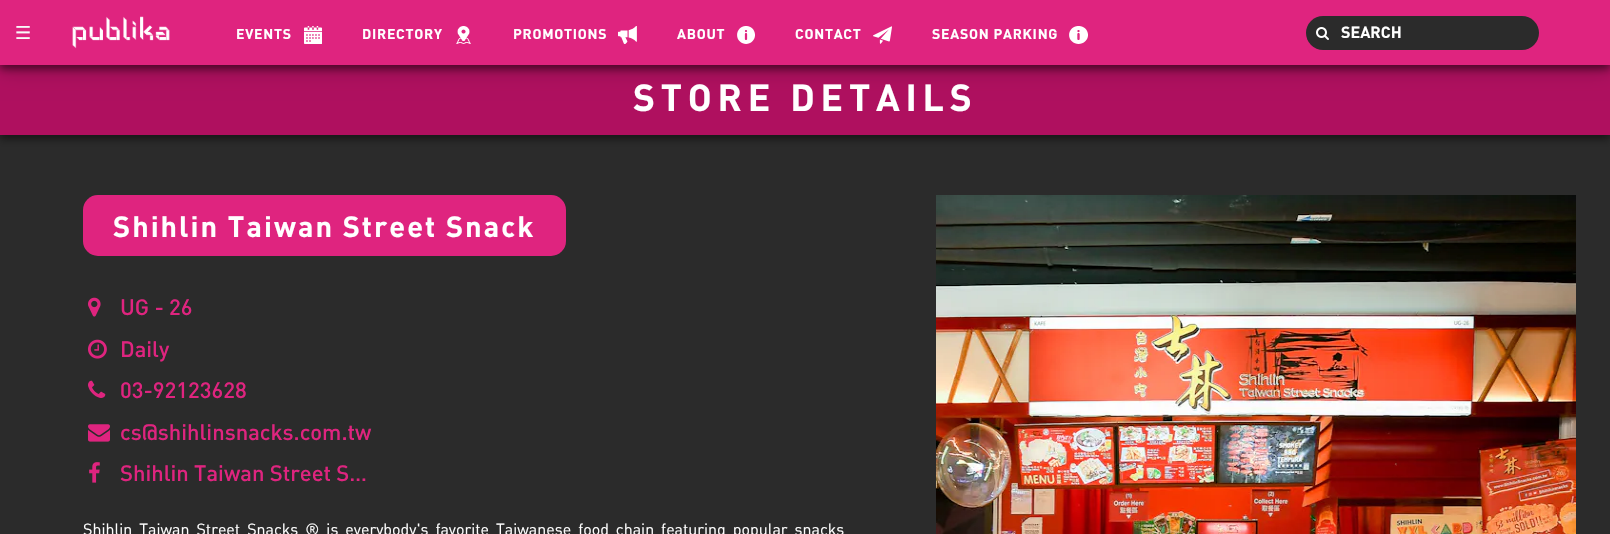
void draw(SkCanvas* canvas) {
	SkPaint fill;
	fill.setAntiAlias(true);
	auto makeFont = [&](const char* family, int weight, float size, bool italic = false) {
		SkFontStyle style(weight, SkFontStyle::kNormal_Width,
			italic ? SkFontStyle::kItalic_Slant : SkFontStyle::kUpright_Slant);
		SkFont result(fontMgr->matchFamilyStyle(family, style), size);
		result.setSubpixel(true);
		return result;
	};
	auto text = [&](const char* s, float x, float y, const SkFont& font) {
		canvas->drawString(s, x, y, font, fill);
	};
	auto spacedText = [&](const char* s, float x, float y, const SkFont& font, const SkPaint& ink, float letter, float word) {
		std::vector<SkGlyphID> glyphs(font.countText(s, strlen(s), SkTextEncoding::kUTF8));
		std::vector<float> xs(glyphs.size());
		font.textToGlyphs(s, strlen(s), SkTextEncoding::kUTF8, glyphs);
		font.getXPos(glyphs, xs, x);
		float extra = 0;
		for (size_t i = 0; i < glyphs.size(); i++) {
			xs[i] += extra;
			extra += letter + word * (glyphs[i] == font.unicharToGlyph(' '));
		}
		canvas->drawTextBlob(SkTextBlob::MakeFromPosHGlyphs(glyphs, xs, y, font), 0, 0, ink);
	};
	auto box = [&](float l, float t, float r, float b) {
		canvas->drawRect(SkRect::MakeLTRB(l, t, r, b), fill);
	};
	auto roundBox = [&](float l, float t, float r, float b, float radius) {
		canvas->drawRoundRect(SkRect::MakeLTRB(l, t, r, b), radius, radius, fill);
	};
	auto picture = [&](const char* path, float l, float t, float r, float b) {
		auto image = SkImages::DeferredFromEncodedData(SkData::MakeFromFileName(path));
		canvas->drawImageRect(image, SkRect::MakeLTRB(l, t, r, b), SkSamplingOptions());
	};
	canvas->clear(0xFF2B2B2B);
	fill.setColor(0x80000000);
	fill.setMaskFilter(SkMaskFilter::MakeBlur(kNormal_SkBlurStyle, 4));
	canvas->drawRect(SkRect::MakeLTRB(0, 69, 1610, 139), fill);
	fill.setMaskFilter(nullptr);
	fill.setColor(0xFFAF105F);
	box(0, 65, 1610, 135);
	fill.setColor(0x30000000);
	fill.setMaskFilter(SkMaskFilter::MakeBlur(kNormal_SkBlurStyle, 10));
	canvas->drawRect(SkRect::MakeLTRB(0, 6, 1610, 71), fill);
	fill.setMaskFilter(nullptr);
	fill.setColor(0x80000000);
	fill.setMaskFilter(SkMaskFilter::MakeBlur(kNormal_SkBlurStyle, 4));
	canvas->drawRect(SkRect::MakeLTRB(0, 4, 1610, 69), fill);
	fill.setMaskFilter(nullptr);
	fill.setColor(0xFFDF247F);
	box(0, 0, 1610, 65);
	picture("image0.png", 72, 16, 170, 49);
	picture("image1.png", 304, 26, 322, 44);
	picture("image2.png", 456, 26, 471, 44);
	picture("image3.png", 618, 26, 637, 44);
	picture("image4.png", 737, 26, 755, 44);
	picture("image5.png", 873, 26, 892, 44);
	picture("image6.png", 1069, 26, 1088, 44);
	fill.setColor(0xFF2B2B2B);
	roundBox(1306, 16, 1539, 50, 17);
	picture("image7.png", 1316, 27, 1329, 40);
	fill.setColor(0xFFDF247F);
	roundBox(83, 195, 566, 256, 15);
	picture("image8.png", 88, 297, 101, 317);
	picture("image9.png", 88, 339, 107, 359);
	picture("image10.png", 88, 380, 106, 398);
	picture("image11.png", 88, 424, 110, 442);
	picture("image12.png", 89, 462, 100, 483);
	picture("image13.png", 936, 195, 1576, 534);
	auto font1 = makeFont("DejaVu Sans", 400, 18);
	fill.setColor(0xFFF8F9FA);
	text("☰", 15, 39, font1);
	auto font2 = makeFont("DIN", 700, 14);
	fill.setColor(0xFFFFFFFF);
	spacedText("EVENTS", 236, 39, font2, fill, 0.75f, 0);
	spacedText("DIRECTORY", 362, 39, font2, fill, 0.75f, 0);
	spacedText("PROMOTIONS", 513, 39, font2, fill, 0.75f, 0);
	spacedText("ABOUT", 677, 39, font2, fill, 0.75f, 0);
	spacedText("CONTACT", 795, 39, font2, fill, 0.75f, 0);
	spacedText("SEASON PARKING", 932, 39, font2, fill, 0.75f, 0);
	auto font3 = makeFont("DIN", 700, 16);
	text("SEARCH", 1341, 38, font3);
	auto font4 = makeFont("DIN", 700, 37.25f);
	spacedText("STORE DETAILS", 633, 111, font4, fill, 5.75f, 0);
	auto font5 = makeFont("DIN", 700, 29);
	spacedText("Shihlin Taiwan Street Snack", 113, 237, font5, fill, 2, 0);
	auto font6 = makeFont("DIN", 500, 22);
	fill.setColor(0xFFDF247F);
	text("UG - 26", 120, 315, font6);
	text("Daily", 120, 357, font6);
	text("03-92123628", 120, 398, font6);
	text("cs@shihlinsnacks.com.tw", 120, 440, font6);
	text("Shihlin Taiwan Street S…", 120, 481, font6);
	auto font7 = makeFont("DIN", 400, 16);
	fill.setColor(0xFFFFFFFF);
	spacedText("Shihlin Taiwan Street Snacks ® is everybody's favorite Taiwanese food chain featuring popular snacks", 83, 535, font7, fill, 0, 3);
}
